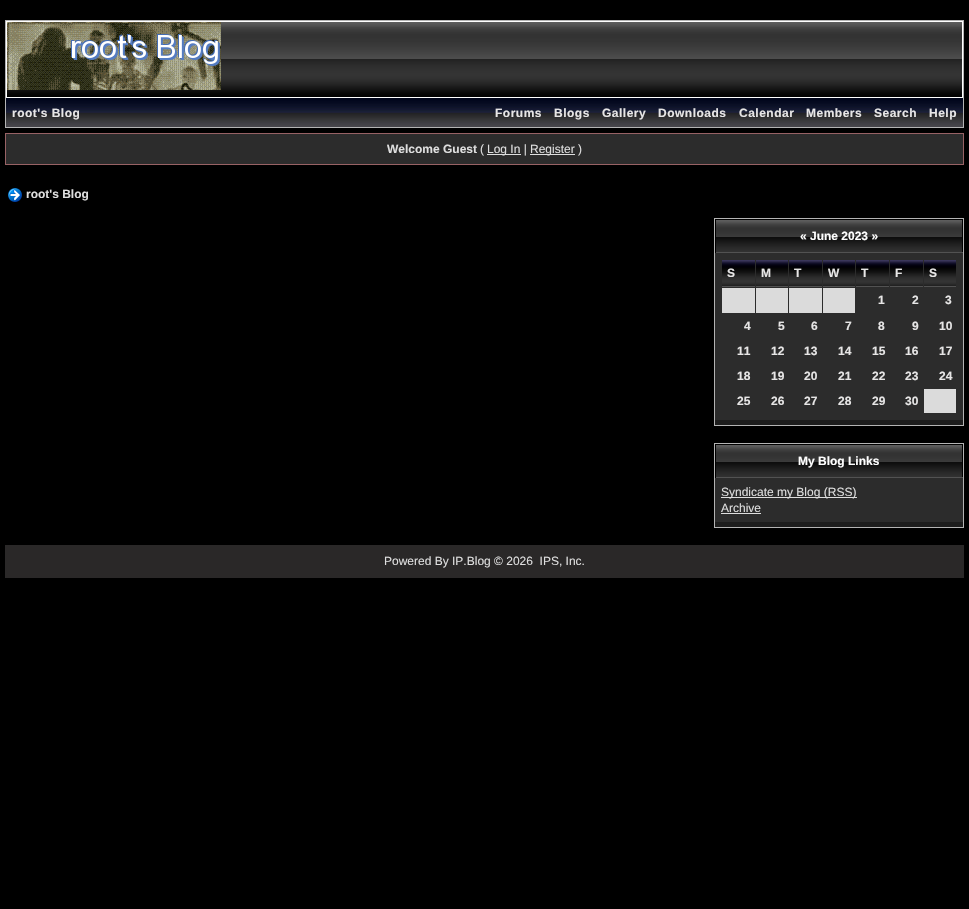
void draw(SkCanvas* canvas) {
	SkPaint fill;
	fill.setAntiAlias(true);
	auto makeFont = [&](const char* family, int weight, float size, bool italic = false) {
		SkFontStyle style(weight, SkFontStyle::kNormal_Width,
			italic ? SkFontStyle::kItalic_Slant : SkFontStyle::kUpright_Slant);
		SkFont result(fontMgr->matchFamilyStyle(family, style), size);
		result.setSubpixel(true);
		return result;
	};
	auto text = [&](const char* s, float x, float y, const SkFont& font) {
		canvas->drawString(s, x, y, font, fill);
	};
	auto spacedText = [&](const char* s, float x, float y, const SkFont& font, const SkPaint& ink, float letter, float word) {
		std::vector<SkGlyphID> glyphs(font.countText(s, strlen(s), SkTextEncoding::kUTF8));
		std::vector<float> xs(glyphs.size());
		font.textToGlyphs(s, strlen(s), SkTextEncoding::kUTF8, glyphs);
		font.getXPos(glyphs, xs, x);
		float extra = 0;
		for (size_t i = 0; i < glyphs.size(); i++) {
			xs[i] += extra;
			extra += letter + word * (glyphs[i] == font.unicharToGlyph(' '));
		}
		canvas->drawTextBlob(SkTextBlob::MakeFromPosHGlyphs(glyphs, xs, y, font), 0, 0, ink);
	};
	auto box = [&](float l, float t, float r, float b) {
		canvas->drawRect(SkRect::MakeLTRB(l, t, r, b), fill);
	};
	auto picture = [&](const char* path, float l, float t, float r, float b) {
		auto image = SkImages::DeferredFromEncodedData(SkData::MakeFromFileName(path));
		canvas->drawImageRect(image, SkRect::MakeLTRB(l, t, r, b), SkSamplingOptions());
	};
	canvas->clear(0xFF000000);
	fill.setStyle(SkPaint::kStroke_Style);
	fill.setStrokeWidth(1);
	fill.setColor(0xFFB4B4B4);
	canvas->drawRect(SkRect::MakeLTRB(5.5f, 20.5f, 963.5f, 127.5f), fill);
	picture("image0.png", 7, 22, 962, 97);
	fill.setColor(0xFFFFFFFF);
	canvas->drawRect(SkRect::MakeLTRB(6.5f, 21.5f, 962.5f, 97.5f), fill);
	picture("image1.png", 7, 22, 221, 90);
	picture("image2.png", 6, 98, 963, 127);
	fill.setStyle(SkPaint::kFill_Style);
	fill.setColor(0xFF2C2C2C);
	canvas->drawRect(SkRect::MakeLTRB(5.5f, 133.5f, 963.5f, 164.5f), fill);
	fill.setStyle(SkPaint::kStroke_Style);
	fill.setColor(0xFF986265);
	canvas->drawRect(SkRect::MakeLTRB(5.5f, 133.5f, 963.5f, 164.5f), fill);
	fill.setStyle(SkPaint::kFill_Style);
	fill.setColor(0xFFDEDEDE);
	box(487, 154, 521, 155);
	box(530, 154, 575, 155);
	picture("image3.png", 8, 188, 22, 202);
	fill.setStyle(SkPaint::kStroke_Style);
	fill.setColor(0xFFB4B4B4);
	canvas->drawRect(SkRect::MakeLTRB(714.5f, 218.5f, 963.5f, 425.5f), fill);
	picture("image4.png", 716, 220, 962, 252);
	fill.setStyle(SkPaint::kFill_Style);
	fill.setColor(0xFF525252);
	box(715, 252, 963, 253);
	fill.setColor(0xFF000000);
	box(715, 252, 716, 253);
	fill.setColor(0xFF2C2C2C);
	box(715, 253, 963, 420);
	picture("image5.png", 722, 260, 755, 286);
	fill.setColor(0xFF525252);
	box(722, 286, 755, 287);
	picture("image6.png", 756, 260, 788, 286);
	box(756, 286, 788, 287);
	picture("image5.png", 789, 260, 822, 286);
	box(789, 286, 822, 287);
	picture("image6.png", 823, 260, 855, 286);
	box(823, 286, 855, 287);
	picture("image5.png", 856, 260, 889, 286);
	box(856, 286, 889, 287);
	picture("image5.png", 890, 260, 923, 286);
	box(890, 286, 923, 287);
	picture("image6.png", 924, 260, 956, 286);
	box(924, 286, 956, 287);
	fill.setColor(0xFFDBDBDB);
	box(722, 288, 755, 313);
	box(756, 288, 788, 313);
	box(789, 288, 822, 313);
	box(823, 288, 855, 313);
	box(924, 389, 956, 413);
	fill.setColor(0xFF1D1D1D);
	box(715, 420, 963, 425);
	fill.setStyle(SkPaint::kStroke_Style);
	fill.setColor(0xFFB4B4B4);
	canvas->drawRect(SkRect::MakeLTRB(714.5f, 443.5f, 963.5f, 527.5f), fill);
	picture("image4.png", 716, 445, 962, 477);
	fill.setStyle(SkPaint::kFill_Style);
	fill.setColor(0xFF525252);
	box(715, 477, 963, 478);
	fill.setColor(0xFF000000);
	box(715, 477, 716, 478);
	fill.setColor(0xFF2C2C2C);
	box(715, 478, 963, 522);
	fill.setColor(0xFFDEDEDE);
	box(721, 497, 857, 498);
	box(721, 513, 761, 514);
	fill.setColor(0xFF1D1D1D);
	box(715, 522, 963, 527);
	fill.setColor(0xFF2A2828);
	box(5, 545, 964, 578);
	auto font1 = makeFont("Liberation Sans", 700, 12);
	fill.setColor(0xFFE7E6E6);
	spacedText("root's Blog", 12, 117, font1, fill, 0.5f, 0);
	spacedText("Forums", 495, 117, font1, fill, 0.5f, 0);
	spacedText("Blogs", 554, 117, font1, fill, 0.5f, 0);
	spacedText("Gallery", 602, 117, font1, fill, 0.5f, 0);
	spacedText("Downloads", 658, 117, font1, fill, 0.5f, 0);
	spacedText("Calendar", 739, 117, font1, fill, 0.5f, 0);
	spacedText("Members", 806, 117, font1, fill, 0.5f, 0);
	spacedText("Search", 874, 117, font1, fill, 0.5f, 0);
	spacedText("Help", 929, 117, font1, fill, 0.5f, 0);
	fill.setColor(0xFFDEDEDE);
	text("Welcome Guest", 387, 153, font1);
	auto font2 = makeFont("Liberation Sans", 400, 12);
	text("(", 480, 153, font2);
	text("Log In |", 487, 153, font2);
	text("Register )", 530, 153, font2);
	text("root's Blog", 26, 198, font1);
	fill.setColor(0xFFFFFFFF);
	text("« June 2023 »", 800, 240, font1);
	fill.setColor(0xFFE7E6E6);
	spacedText("S", 727, 277, font1, fill, 1, 0);
	spacedText("M", 761, 277, font1, fill, 1, 0);
	spacedText("T", 794, 277, font1, fill, 1, 0);
	spacedText("W", 828, 277, font1, fill, 1, 0);
	spacedText("T", 861, 277, font1, fill, 1, 0);
	spacedText("F", 895, 277, font1, fill, 1, 0);
	spacedText("S", 929, 277, font1, fill, 1, 0);
	text("1", 878, 304, font1);
	text("2", 912, 304, font1);
	text("3", 945, 304, font1);
	text("4", 744, 330, font1);
	text("5", 778, 330, font1);
	text("6", 811, 330, font1);
	text("7", 845, 330, font1);
	text("8", 878, 330, font1);
	text("9", 912, 330, font1);
	text("10", 939, 330, font1);
	text("11", 737, 355, font1);
	text("12", 771, 355, font1);
	text("13", 804, 355, font1);
	text("14", 838, 355, font1);
	text("15", 872, 355, font1);
	text("16", 905, 355, font1);
	text("17", 939, 355, font1);
	text("18", 737, 380, font1);
	text("19", 771, 380, font1);
	text("20", 804, 380, font1);
	text("21", 838, 380, font1);
	text("22", 872, 380, font1);
	text("23", 905, 380, font1);
	text("24", 939, 380, font1);
	text("25", 737, 405, font1);
	text("26", 771, 405, font1);
	text("27", 804, 405, font1);
	text("28", 838, 405, font1);
	text("29", 872, 405, font1);
	text("30", 905, 405, font1);
	fill.setColor(0xFFFFFFFF);
	text("My Blog Links", 798, 465, font1);
	fill.setColor(0xFFDEDEDE);
	text("Syndicate my Blog (RSS)", 721, 496, font2);
	text("Archive", 721, 512, font2);
	text("Powered By IP.Blog © 2026  IPS, Inc.", 384, 565, font2);
}
